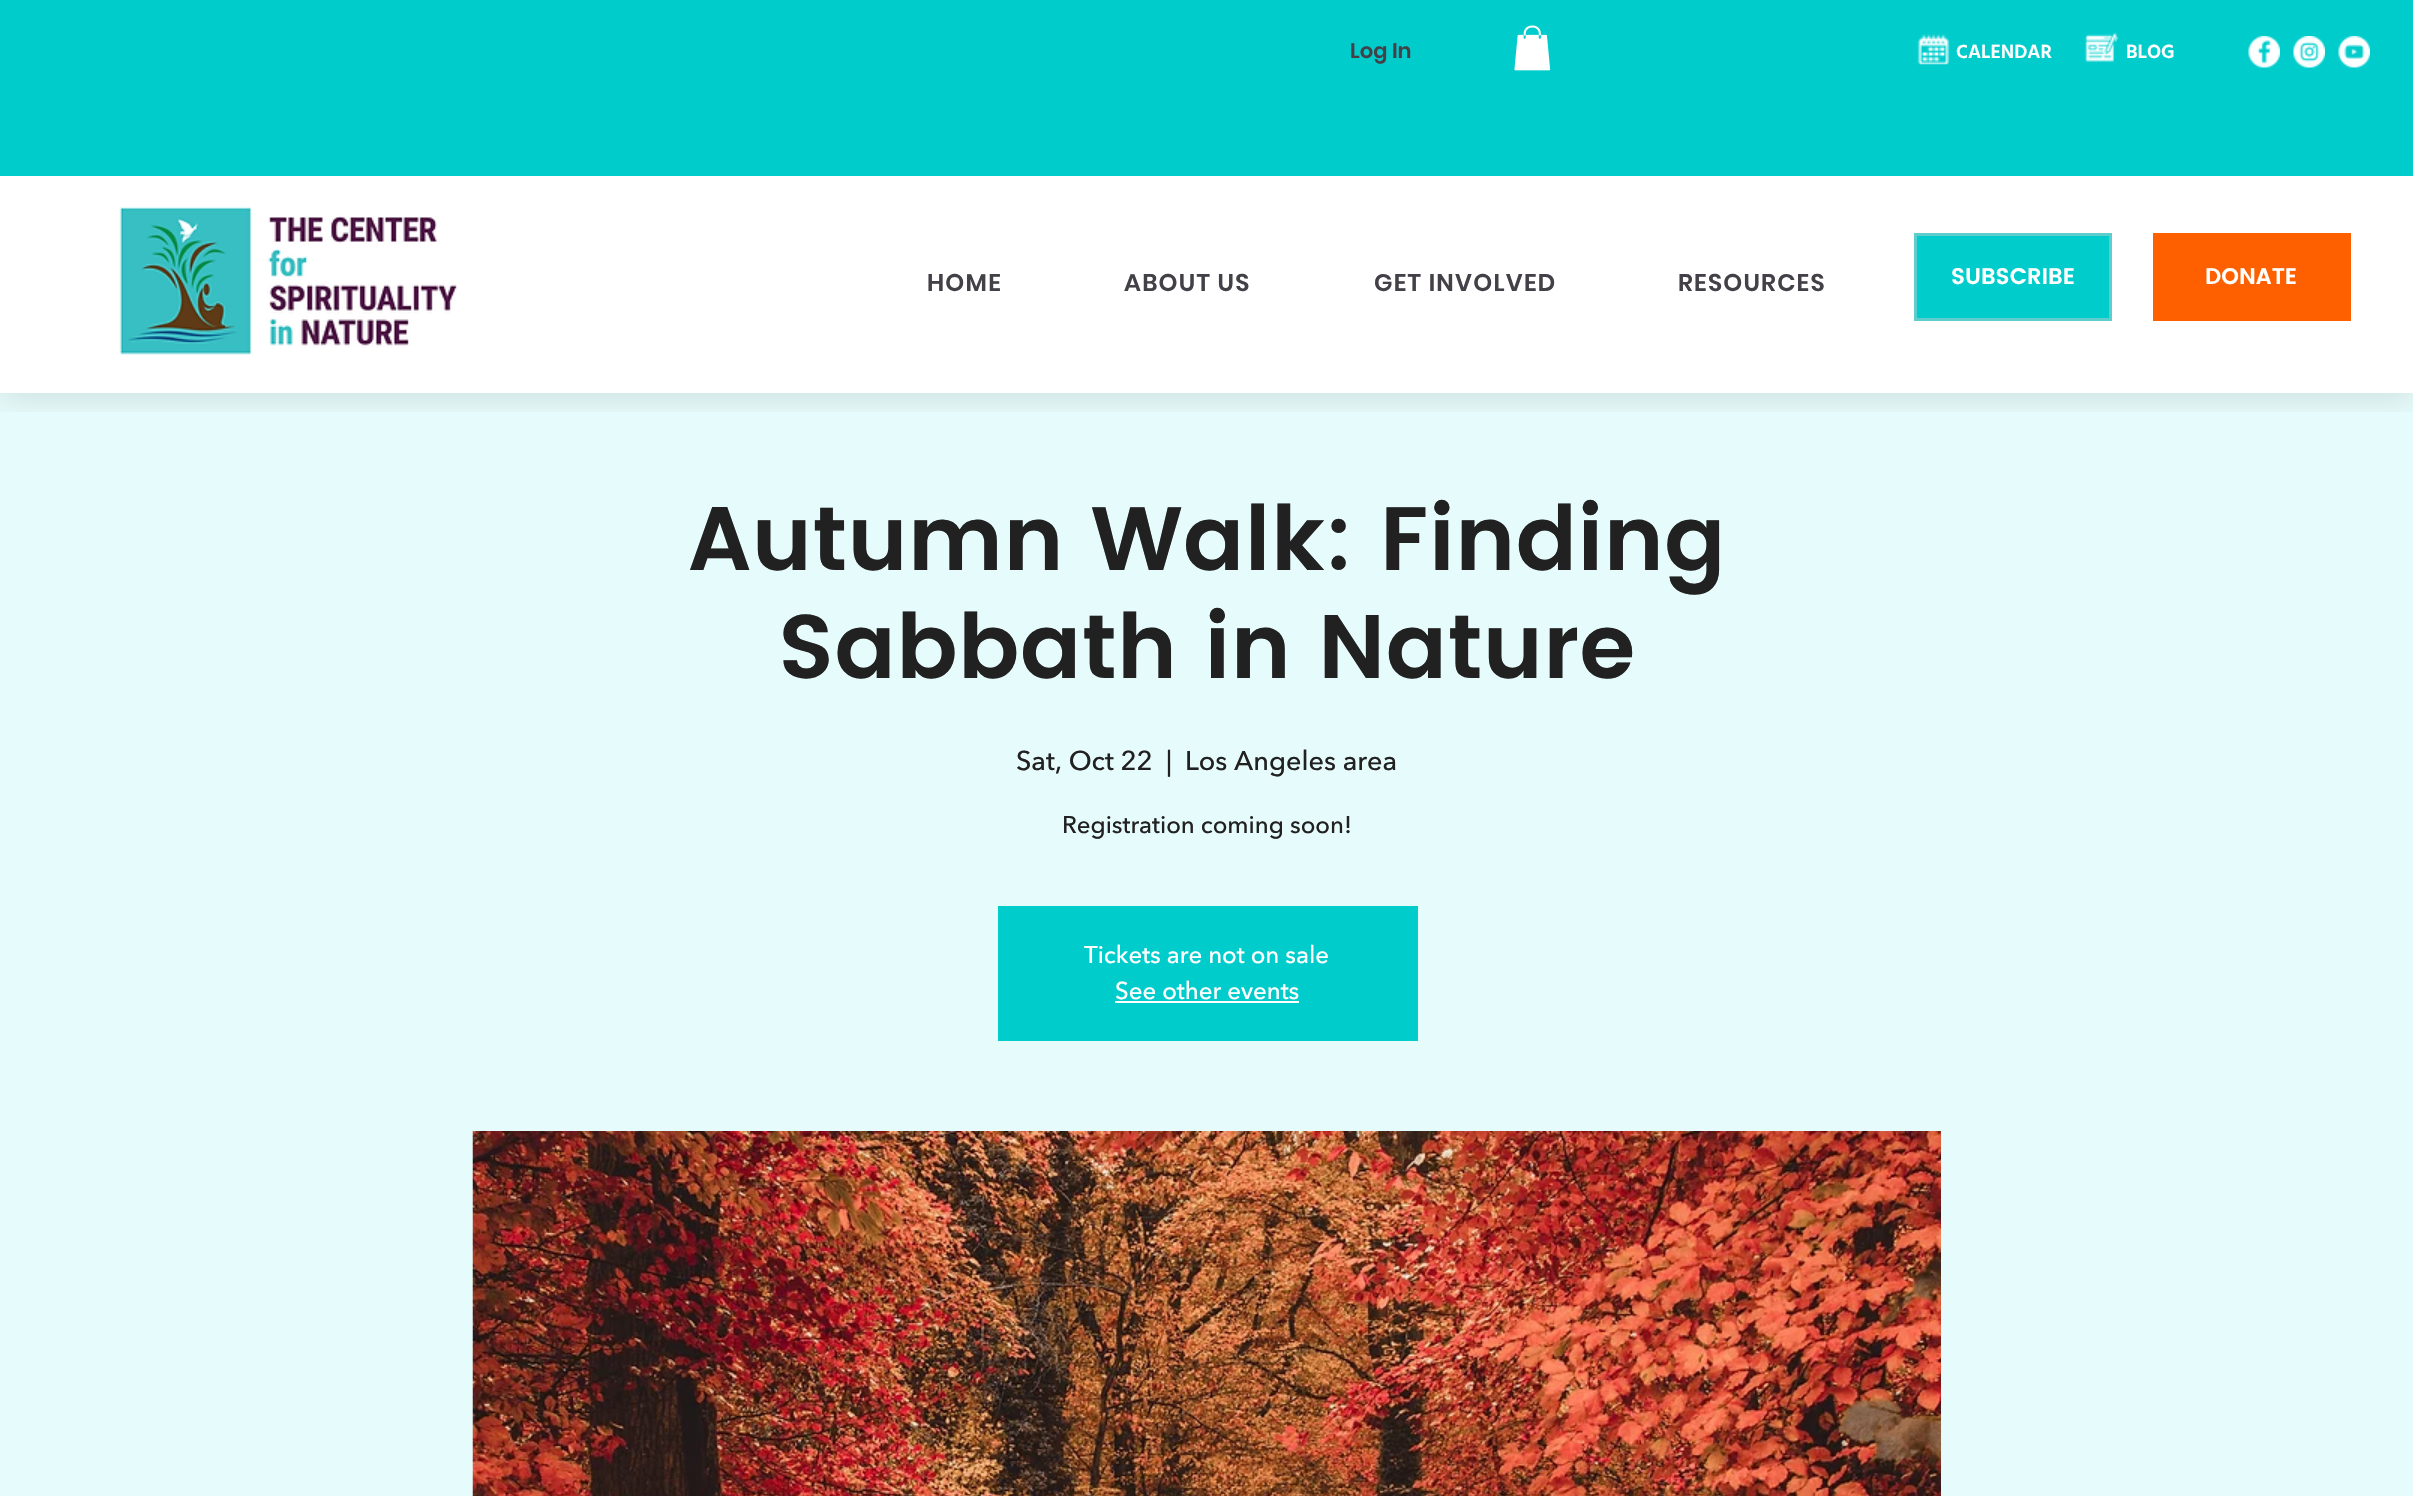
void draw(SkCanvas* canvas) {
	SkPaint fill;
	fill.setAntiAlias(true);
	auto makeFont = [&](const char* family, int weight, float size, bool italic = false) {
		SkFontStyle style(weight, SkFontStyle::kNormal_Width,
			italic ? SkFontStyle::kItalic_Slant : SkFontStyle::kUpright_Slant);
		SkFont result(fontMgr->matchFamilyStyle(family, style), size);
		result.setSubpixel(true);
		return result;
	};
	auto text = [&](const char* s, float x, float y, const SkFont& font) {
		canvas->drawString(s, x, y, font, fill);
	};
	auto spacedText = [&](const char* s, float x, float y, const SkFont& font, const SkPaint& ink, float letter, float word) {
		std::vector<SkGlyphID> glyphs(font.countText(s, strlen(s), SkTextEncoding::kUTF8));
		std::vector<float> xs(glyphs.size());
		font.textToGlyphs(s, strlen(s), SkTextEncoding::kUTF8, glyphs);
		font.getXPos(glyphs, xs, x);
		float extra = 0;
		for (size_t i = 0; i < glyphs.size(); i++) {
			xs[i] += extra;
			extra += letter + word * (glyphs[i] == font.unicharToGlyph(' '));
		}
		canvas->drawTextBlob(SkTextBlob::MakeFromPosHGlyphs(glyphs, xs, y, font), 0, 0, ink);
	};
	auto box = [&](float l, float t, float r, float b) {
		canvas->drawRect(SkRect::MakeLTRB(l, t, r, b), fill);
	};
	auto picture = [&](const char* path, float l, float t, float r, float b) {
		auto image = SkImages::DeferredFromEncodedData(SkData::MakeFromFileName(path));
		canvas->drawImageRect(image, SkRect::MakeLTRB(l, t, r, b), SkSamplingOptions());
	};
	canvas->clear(0xFFFFFFFF);
	fill.setColor(0xFFE6FBFB);
	box(0, 393, 2413, 1496);
	canvas->save();
	canvas->clipRect(SkRect::MakeLTRB(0, 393, 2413, 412));
	fill.setColor(0x1A000000);
	fill.setMaskFilter(SkMaskFilter::MakeBlur(kNormal_SkBlurStyle, 15));
	canvas->drawRect(SkRect::MakeLTRB(0, 6, 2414, 399), fill);
	fill.setMaskFilter(nullptr);
	canvas->restore();
	fill.setColor(0xFF00CCCC);
	box(0, 0, 2413, 176);
	picture("image0.png", 1514, 25, 1551, 71);
	picture("image1.png", 1917, 34, 1950, 65);
	picture("image2.png", 2084, 32, 2119, 62);
	picture("image3.png", 2248, 36, 2280, 68);
	picture("image4.png", 2293, 36, 2325, 68);
	picture("image5.png", 2338, 36, 2370, 68);
	picture("image6.png", 119, 206, 457, 355);
	canvas->drawRect(SkRect::MakeLTRB(1915.5f, 234.5f, 2110.5f, 319.5f), fill);
	fill.setStyle(SkPaint::kStroke_Style);
	fill.setStrokeWidth(3);
	fill.setColor(0xFF60CDCD);
	canvas->drawRect(SkRect::MakeLTRB(1915.5f, 234.5f, 2110.5f, 319.5f), fill);
	fill.setStyle(SkPaint::kFill_Style);
	fill.setColor(0xFFFE6000);
	box(2153, 233, 2351, 321);
	fill.setColor(0xFF00CCCC);
	box(998, 906, 1418, 1041);
	fill.setColor(0xFFFFFFFF);
	box(1115, 1001, 1299, 1003);
	picture("image7.png", 472, 1131, 1941, 1496);
	auto font1 = makeFont("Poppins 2", 600, 21);
	fill.setColor(0xFF434047);
	text("Log In", 1350, 58, font1);
	auto font2 = makeFont("Hind", 600, 19.5f);
	fill.setColor(0xFFFFFFFF);
	text("CALENDAR", 1956, 58, font2);
	text("BLOG", 2126, 58, font2);
	auto font3 = makeFont("Poppins 2", 600, 24);
	fill.setColor(0xFF434047);
	spacedText("HOME", 927, 291, font3, fill, 1.25f, 0);
	spacedText("ABOUT US", 1124, 291, font3, fill, 1.25f, 0);
	spacedText("GET INVOLVED", 1374, 291, font3, fill, 1.25f, 0);
	spacedText("RESOURCES", 1678, 291, font3, fill, 1.25f, 0);
	auto font4 = makeFont("Poppins", 600, 22.5f);
	fill.setColor(0xFFFFFFFF);
	text("SUBSCRIBE", 1951, 284, font4);
	text("DONATE", 2205, 284, font4);
	auto font5 = makeFont("Poppins", 600, 90);
	fill.setColor(0xFF212121);
	text("Autumn Walk: Finding", 688, 570, font5);
	text("Sabbath in Nature", 778, 678, font5);
	auto font6 = makeFont("Avenir Next", 500, 27);
	text("Sat, Oct 22", 1016, 770, font6);
	text("|", 1166, 770, font6);
	text("Los Angeles area", 1185, 770, font6);
	auto font7 = makeFont("Avenir Next", 500, 24);
	text("Registration coming soon!", 1062, 833, font7);
	fill.setColor(0xFFFFFFFF);
	text("Tickets are not on sale", 1084, 963, font7);
	text("See other events", 1115, 999, font7);
}
